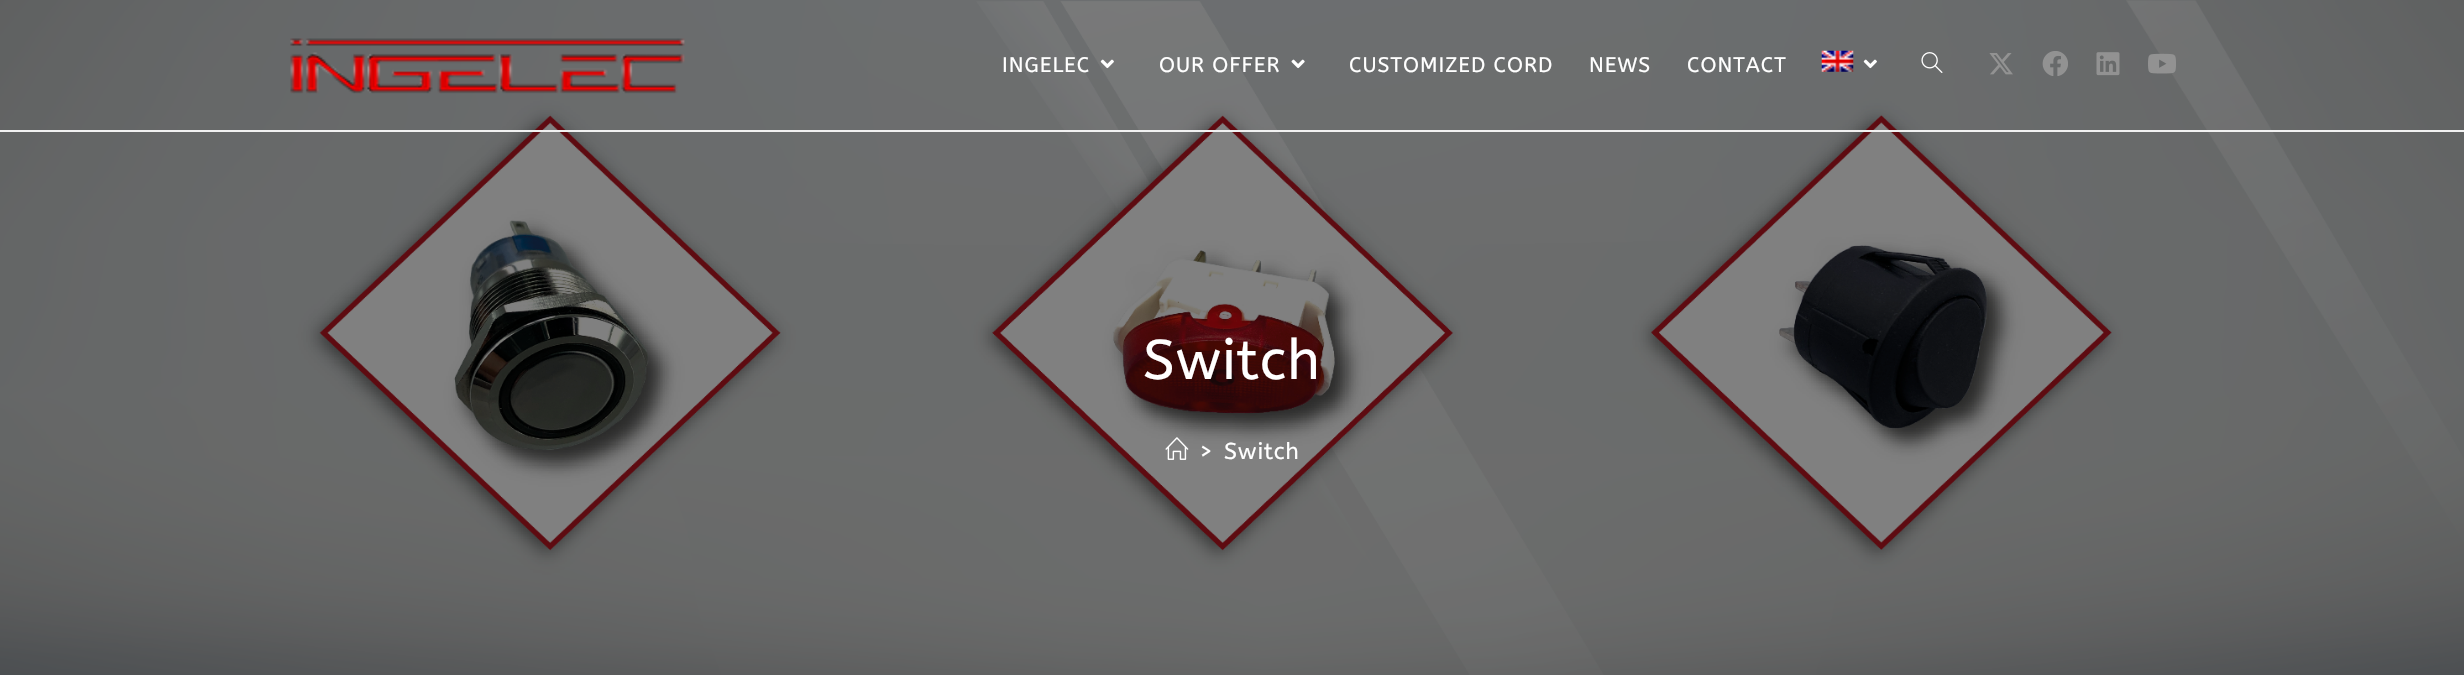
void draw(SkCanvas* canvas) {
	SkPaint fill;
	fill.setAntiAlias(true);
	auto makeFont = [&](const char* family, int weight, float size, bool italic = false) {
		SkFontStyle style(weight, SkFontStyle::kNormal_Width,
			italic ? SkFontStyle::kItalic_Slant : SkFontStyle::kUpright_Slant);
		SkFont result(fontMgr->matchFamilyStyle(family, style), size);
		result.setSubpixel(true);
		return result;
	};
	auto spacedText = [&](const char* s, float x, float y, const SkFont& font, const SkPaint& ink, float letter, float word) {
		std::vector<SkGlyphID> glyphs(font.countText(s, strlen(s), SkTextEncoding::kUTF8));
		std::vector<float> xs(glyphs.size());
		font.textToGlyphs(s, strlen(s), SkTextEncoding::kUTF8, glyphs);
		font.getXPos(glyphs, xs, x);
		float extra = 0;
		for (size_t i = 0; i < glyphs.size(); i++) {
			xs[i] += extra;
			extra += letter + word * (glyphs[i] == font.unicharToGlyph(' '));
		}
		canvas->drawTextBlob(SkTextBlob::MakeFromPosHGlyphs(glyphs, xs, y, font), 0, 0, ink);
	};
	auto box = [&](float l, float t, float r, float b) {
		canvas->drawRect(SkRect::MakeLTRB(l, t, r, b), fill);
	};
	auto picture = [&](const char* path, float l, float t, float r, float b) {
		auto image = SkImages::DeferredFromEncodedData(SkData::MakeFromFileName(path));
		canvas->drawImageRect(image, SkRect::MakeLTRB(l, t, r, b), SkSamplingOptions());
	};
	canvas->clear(0xFFFFFFFF);
	picture("image10.png", 0, 0, 2464, 675);
	fill.setColor(0xFFF1F1F1);
	box(0, 130, 2464, 132);
	picture("image0.png", 290, 38, 685, 94);
	picture("image1.png", 1100, 59, 1114, 69);
	picture("image2.png", 1291, 59, 1305, 69);
	picture("image3.png", 1821, 50, 1854, 72);
	picture("image4.png", 1863, 59, 1877, 69);
	picture("image5.png", 1921, 52, 1943, 73);
	picture("image6.png", 1989, 53, 2013, 75);
	picture("image7.png", 2042, 51, 2068, 76);
	picture("image8.png", 2096, 52, 2120, 76);
	picture("image9.png", 2148, 53, 2176, 74);
	picture("image11.png", 1165, 437, 1189, 460);
	auto font1 = makeFont("ABeeZee", 400, 21);
	fill.setColor(0xFFFFFFFF);
	spacedText("INGELEC", 1002, 72, font1, fill, 1, 0);
	spacedText("OUR OFFER", 1159, 72, font1, fill, 1, 0);
	spacedText("CUSTOMIZED CORD", 1349, 72, font1, fill, 1, 0);
	spacedText("NEWS", 1589, 72, font1, fill, 1, 0);
	spacedText("CONTACT", 1687, 72, font1, fill, 1, 0);
	auto font2 = makeFont("ABeeZee", 400, 56);
	spacedText("Switch", 1143, 379, font2, fill, 0.75f, 0);
	auto font3 = makeFont("ABeeZee", 400, 23);
	spacedText(">", 1199, 459, font3, fill, 0.75f, 0);
	spacedText("Switch", 1224, 459, font3, fill, 0.75f, 0);
}
